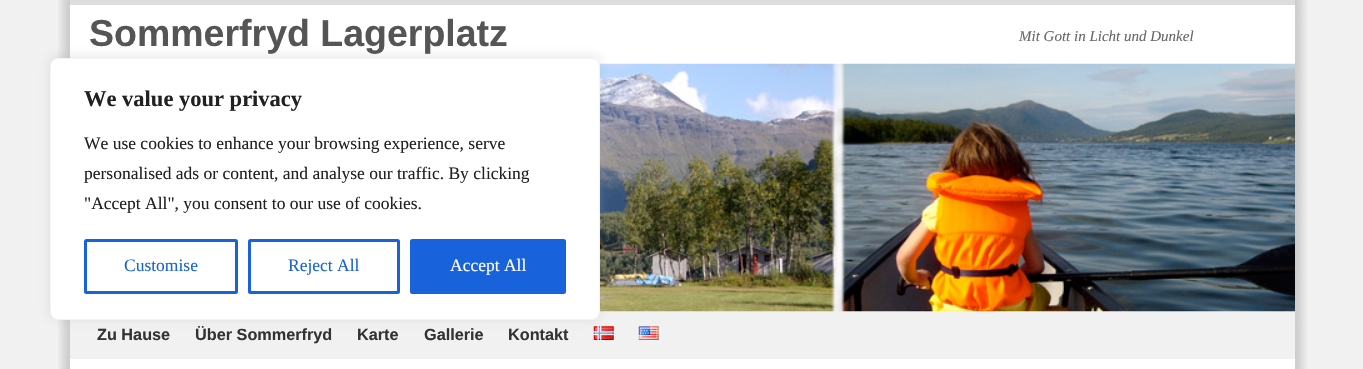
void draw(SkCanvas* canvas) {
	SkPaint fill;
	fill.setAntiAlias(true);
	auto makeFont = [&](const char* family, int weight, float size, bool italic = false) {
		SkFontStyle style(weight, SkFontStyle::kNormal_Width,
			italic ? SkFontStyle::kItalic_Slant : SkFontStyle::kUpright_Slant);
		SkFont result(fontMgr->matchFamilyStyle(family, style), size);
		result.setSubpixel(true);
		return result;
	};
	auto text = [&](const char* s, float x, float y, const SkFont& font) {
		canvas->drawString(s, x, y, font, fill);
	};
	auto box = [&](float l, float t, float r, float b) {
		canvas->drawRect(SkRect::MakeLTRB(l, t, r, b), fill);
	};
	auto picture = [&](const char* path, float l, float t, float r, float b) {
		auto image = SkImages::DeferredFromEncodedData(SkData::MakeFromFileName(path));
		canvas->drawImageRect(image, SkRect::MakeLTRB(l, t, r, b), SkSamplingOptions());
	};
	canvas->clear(0xFFF1F1F1);
	picture("image0.png", 58, 0, 1307, 369);
	fill.setColor(0xFFFFFFFF);
	box(70, 5, 1295, 369);
	fill.setColor(0xFFCDCDCD);
	box(1295, 0, 1296, 369);
	box(69, 0, 70, 369);
	fill.setColor(0xFFDDDDDD);
	box(70, 0, 1295, 5);
	fill.setColor(0xFFF1F1F1);
	box(70, 311, 1295, 359);
	picture("image1.png", 599, 63, 1295, 312);
	picture("image2.png", 593, 326, 614, 340);
	picture("image3.png", 638, 326, 659, 340);
	fill.setColor(0x4DACABAB);
	fill.setMaskFilter(SkMaskFilter::MakeBlur(kNormal_SkBlurStyle, 6));
	canvas->drawRoundRect(SkRect::MakeLTRB(50, 56, 600, 319), 8, 8, fill);
	fill.setMaskFilter(nullptr);
	fill.setColor(0xFFFFFFFF);
	canvas->drawRoundRect(SkRect::MakeLTRB(50.5f, 58.5f, 599.5f, 319.5f), 7.5f, 7.5f, fill);
	fill.setStyle(SkPaint::kStroke_Style);
	fill.setStrokeWidth(1);
	fill.setColor(0xFFF4F4F4);
	canvas->drawRoundRect(SkRect::MakeLTRB(50.5f, 58.5f, 599.5f, 319.5f), 7.5f, 7.5f, fill);
	fill.setStrokeWidth(3);
	fill.setColor(0xFF1863DC);
	canvas->drawRoundRect(SkRect::MakeLTRB(85.5f, 240.5f, 236.5f, 292.5f), 1, 1, fill);
	canvas->drawRoundRect(SkRect::MakeLTRB(249.5f, 240.5f, 398.5f, 292.5f), 1, 1, fill);
	fill.setStyle(SkPaint::kFill_Style);
	canvas->drawRoundRect(SkRect::MakeLTRB(411.5f, 240.5f, 564.5f, 292.5f), 1, 1, fill);
	fill.setStyle(SkPaint::kStroke_Style);
	canvas->drawRoundRect(SkRect::MakeLTRB(411.5f, 240.5f, 564.5f, 292.5f), 1, 1, fill);
	auto font1 = makeFont("Liberation Sans", 700, 37.5f);
	fill.setStyle(SkPaint::kFill_Style);
	fill.setColor(0xFF555555);
	text("Sommerfryd Lagerplatz", 89, 46, font1);
	auto font2 = makeFont("Liberation Serif", 400, 15, true);
	fill.setColor(0xFF666666);
	text("Mit Gott in Licht und Dunkel", 1019, 41, font2);
	auto font3 = makeFont("Liberation Sans", 700, 16.25f);
	fill.setColor(0xFF333333);
	text("Zu Hause", 97, 340, font3);
	text("Über Sommerfryd", 195, 340, font3);
	text("Karte", 357, 340, font3);
	text("Gallerie", 424, 340, font3);
	text("Kontakt", 508, 340, font3);
	auto font4 = makeFont("Liberation Serif", 700, 22.5f);
	fill.setColor(0xFF212121);
	text("We value your privacy", 84, 106, font4);
	auto font5 = makeFont("Liberation Serif", 400, 17.5f);
	text("We use cookies to enhance your browsing experience, serve", 84, 149, font5);
	text("personalised ads or content, and analyse our traffic. By clicking", 84, 179, font5);
	text("\"Accept All\", you consent to our use of cookies.", 84, 209, font5);
	fill.setColor(0xFF1863DC);
	text("Customise", 124, 271, font5);
	text("Reject All", 288, 271, font5);
	fill.setColor(0xFFFFFFFF);
	text("Accept All", 450, 271, font5);
}
